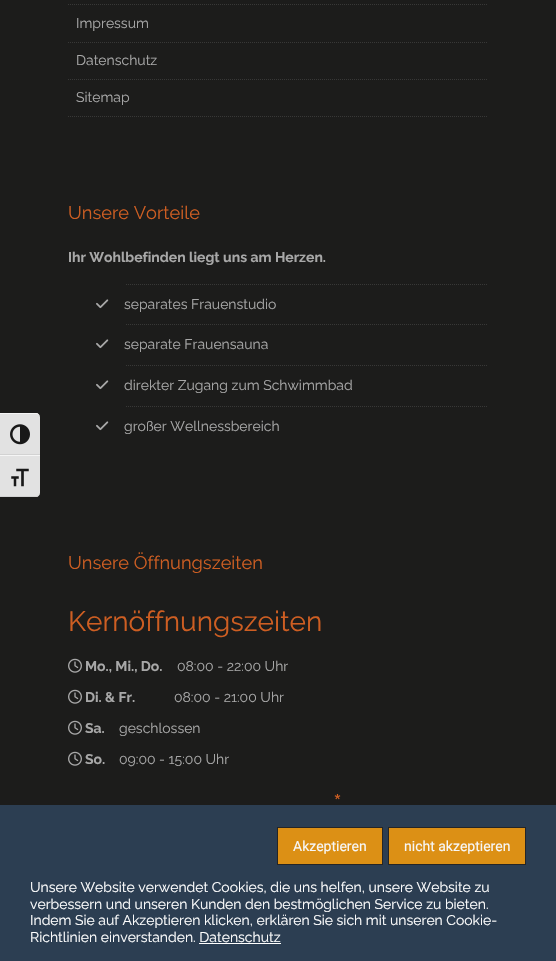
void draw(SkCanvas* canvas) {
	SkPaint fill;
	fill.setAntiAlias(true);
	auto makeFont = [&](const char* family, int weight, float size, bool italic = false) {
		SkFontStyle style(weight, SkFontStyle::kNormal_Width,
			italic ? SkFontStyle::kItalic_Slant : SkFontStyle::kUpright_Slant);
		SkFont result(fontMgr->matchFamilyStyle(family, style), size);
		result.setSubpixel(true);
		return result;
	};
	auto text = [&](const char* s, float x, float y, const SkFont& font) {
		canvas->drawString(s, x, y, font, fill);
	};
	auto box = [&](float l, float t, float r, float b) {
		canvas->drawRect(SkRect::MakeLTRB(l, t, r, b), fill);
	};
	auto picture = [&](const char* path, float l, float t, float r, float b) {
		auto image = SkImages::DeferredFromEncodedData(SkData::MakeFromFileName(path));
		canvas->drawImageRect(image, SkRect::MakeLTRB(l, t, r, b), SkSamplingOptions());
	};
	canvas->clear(0xFF1C1C1B);
	fill.setColor(0xFFE2E2E2);
	canvas->drawPath(SkPathBuilder().moveTo(0, 413).lineTo(36, 413).cubicTo(38, 413, 40, 415, 40, 417).lineTo(40, 455).lineTo(0, 455).close().detach(), fill);
	fill.setColor(0xFFF5F5F5);
	canvas->drawPath(SkPathBuilder().moveTo(0, 413).lineTo(0, 414).lineTo(36, 414).cubicTo(38, 414, 40, 415, 40, 417).cubicTo(40, 415, 38, 413, 36, 413).close().detach(), fill);
	fill.setColor(0xFFD2D2D2);
	box(0, 454, 40, 455);
	picture("image0.png", 10, 424, 30, 445);
	fill.setColor(0xFFE2E2E2);
	canvas->drawPath(SkPathBuilder().moveTo(0, 455).lineTo(40, 455).lineTo(40, 493).cubicTo(40, 495, 38, 497, 36, 497).lineTo(0, 497).close().detach(), fill);
	fill.setColor(0xFFF5F5F5);
	box(0, 455, 40, 456);
	fill.setColor(0xFFD2D2D2);
	canvas->drawPath(SkPathBuilder().moveTo(0, 496).lineTo(0, 497).lineTo(36, 497).cubicTo(38, 497, 40, 495, 40, 493).cubicTo(40, 495, 38, 496, 36, 496).close().detach(), fill);
	picture("image1.png", 11, 468, 29, 487);
	fill.setStyle(SkPaint::kStroke_Style);
	fill.setStrokeWidth(1);
	fill.setColor(0xFF383837);
	fill.setPathEffect(SkDashPathEffect::Make({{1, 1}}, 0));
	canvas->drawPath(SkPathBuilder().moveTo(68, 4.5f).lineTo(488, 4.5f).detach(), fill);
	fill.setPathEffect(nullptr);
	fill.setPathEffect(SkDashPathEffect::Make({{1, 1}}, 0));
	canvas->drawPath(SkPathBuilder().moveTo(68, 42.5f).lineTo(488, 42.5f).detach(), fill);
	fill.setPathEffect(nullptr);
	fill.setPathEffect(SkDashPathEffect::Make({{1, 1}}, 0));
	canvas->drawPath(SkPathBuilder().moveTo(68, 79.5f).lineTo(488, 79.5f).detach(), fill);
	fill.setPathEffect(nullptr);
	fill.setPathEffect(SkDashPathEffect::Make({{1, 1}}, 0));
	canvas->drawPath(SkPathBuilder().moveTo(68, 116.5f).lineTo(488, 116.5f).detach(), fill);
	fill.setPathEffect(nullptr);
	fill.setPathEffect(SkDashPathEffect::Make({{1, 1}}, 0));
	canvas->drawPath(SkPathBuilder().moveTo(126, 284.5f).lineTo(488, 284.5f).detach(), fill);
	fill.setPathEffect(nullptr);
	fill.setPathEffect(SkDashPathEffect::Make({{1, 1}}, 0));
	canvas->drawPath(SkPathBuilder().moveTo(126, 324.5f).lineTo(488, 324.5f).detach(), fill);
	fill.setPathEffect(nullptr);
	picture("image2.png", 96, 299, 109, 309);
	fill.setPathEffect(SkDashPathEffect::Make({{1, 1}}, 0));
	canvas->drawPath(SkPathBuilder().moveTo(126, 365.5f).lineTo(488, 365.5f).detach(), fill);
	fill.setPathEffect(nullptr);
	picture("image2.png", 96, 339, 109, 349);
	fill.setPathEffect(SkDashPathEffect::Make({{1, 1}}, 0));
	canvas->drawPath(SkPathBuilder().moveTo(126, 406.5f).lineTo(488, 406.5f).detach(), fill);
	fill.setPathEffect(nullptr);
	picture("image2.png", 96, 380, 109, 390);
	picture("image2.png", 96, 421, 109, 431);
	picture("image3.png", 68, 658, 82, 673);
	picture("image3.png", 68, 689, 82, 704);
	picture("image3.png", 68, 720, 82, 735);
	picture("image3.png", 68, 751, 82, 766);
	fill.setStyle(SkPaint::kFill_Style);
	fill.setColor(0xFF2C3E52);
	box(0, 805, 556, 961);
	fill.setColor(0xFFDC9015);
	canvas->drawRect(SkRect::MakeLTRB(277.5f, 827.5f, 382.5f, 864.5f), fill);
	fill.setStyle(SkPaint::kStroke_Style);
	fill.setColor(0xFF252526);
	canvas->drawRect(SkRect::MakeLTRB(277.5f, 827.5f, 382.5f, 864.5f), fill);
	fill.setStyle(SkPaint::kFill_Style);
	fill.setColor(0xFFDC9015);
	canvas->drawRect(SkRect::MakeLTRB(388.5f, 827.5f, 525.5f, 864.5f), fill);
	fill.setStyle(SkPaint::kStroke_Style);
	fill.setColor(0xFF252526);
	canvas->drawRect(SkRect::MakeLTRB(388.5f, 827.5f, 525.5f, 864.5f), fill);
	fill.setStyle(SkPaint::kFill_Style);
	fill.setColor(0xFFFFFFFF);
	box(199, 943, 281, 944);
	auto font1 = makeFont("Raleway", 400, 14);
	fill.setColor(0xFFA8A8A8);
	text("Impressum", 76, 28, font1);
	text("Datenschutz", 76, 65, font1);
	text("Sitemap", 76, 102, font1);
	auto font2 = makeFont("Raleway", 400, 18.25f);
	fill.setColor(0xFFCE5E22);
	text("Unsere Vorteile", 68, 219, font2);
	auto font3 = makeFont("Raleway", 700, 14);
	fill.setColor(0xFFA8A8A8);
	text("Ihr Wohlbefinden liegt uns am Herzen.", 68, 262, font3);
	text("separates Frauenstudio", 124, 309, font1);
	text("separate Frauensauna", 124, 349, font1);
	text("direkter Zugang zum Schwimmbad", 124, 390, font1);
	text("großer Wellnessbereich", 124, 431, font1);
	fill.setColor(0xFFCE5E22);
	text("Unsere Öffnungszeiten", 68, 569, font2);
	auto font4 = makeFont("Raleway", 400, 28);
	text("Kernöffnungszeiten", 68, 631, font4);
	fill.setColor(0xFFA8A8A8);
	text("Mo., Mi., Do.", 85, 671, font3);
	text("08:00 - 22:00 Uhr", 177, 671, font1);
	text("Di. & Fr.", 85, 702, font3);
	text("08:00 - 21:00 Uhr", 174, 702, font1);
	text("Sa.", 85, 733, font3);
	text("geschlossen", 119, 733, font1);
	text("So.", 85, 764, font3);
	text("09:00 - 15:00 Uhr", 119, 764, font1);
	fill.setColor(0xFFCE5E22);
	text("*", 333, 814, font4);
	auto font5 = makeFont("Roboto", 400, 14);
	fill.setColor(0xFFF7F7F7);
	text("Akzeptieren", 293, 851, font5);
	text("nicht akzeptieren", 404, 851, font5);
	fill.setColor(0xFFFFFFFF);
	text("Unsere Website verwendet Cookies, die uns helfen, unsere Website zu", 30, 892, font1);
	text("verbessern und unseren Kunden den bestmöglichen Service zu bieten.", 30, 909, font1);
	text("Indem Sie auf Akzeptieren klicken, erklären Sie sich mit unseren Cookie-", 30, 925, font1);
	text("Richtlinien einverstanden. Datenschutz", 30, 942, font1);
}
